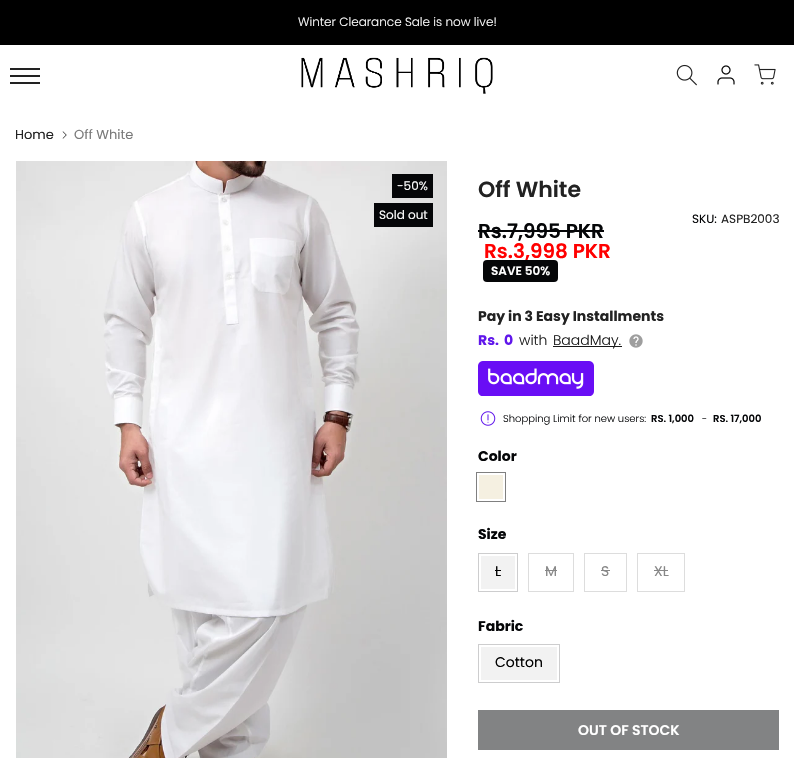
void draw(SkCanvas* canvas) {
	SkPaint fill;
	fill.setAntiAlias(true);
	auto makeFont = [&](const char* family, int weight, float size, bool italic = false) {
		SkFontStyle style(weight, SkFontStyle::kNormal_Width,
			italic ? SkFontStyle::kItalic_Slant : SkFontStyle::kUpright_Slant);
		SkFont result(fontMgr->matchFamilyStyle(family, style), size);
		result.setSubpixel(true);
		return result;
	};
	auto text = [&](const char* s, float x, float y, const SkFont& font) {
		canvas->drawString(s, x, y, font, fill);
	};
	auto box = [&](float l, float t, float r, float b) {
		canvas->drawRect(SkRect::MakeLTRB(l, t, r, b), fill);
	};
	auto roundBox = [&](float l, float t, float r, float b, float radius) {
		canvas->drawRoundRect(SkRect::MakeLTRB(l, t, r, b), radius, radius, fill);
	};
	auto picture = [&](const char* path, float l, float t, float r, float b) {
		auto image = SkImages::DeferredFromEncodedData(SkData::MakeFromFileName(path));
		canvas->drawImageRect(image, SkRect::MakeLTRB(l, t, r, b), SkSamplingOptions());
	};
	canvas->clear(0xFFFFFFFF);
	fill.setColor(0xFF000000);
	box(0, 0, 794, 45);
	fill.setColor(0xFF222222);
	box(10, 68, 40, 70);
	box(10, 75, 40, 77);
	box(10, 82, 40, 84);
	picture("image0.png", 301, 57, 493, 94);
	picture("image1.png", 676, 64, 697, 86);
	picture("image2.png", 717, 65, 735, 85);
	picture("image3.png", 754, 64, 776, 85);
	picture("image4.png", 62, 131, 67, 139);
	picture("image5.png", 16, 161, 447, 758);
	fill.setColor(0xFF050608);
	box(392, 174, 433, 198);
	box(374, 203, 433, 227);
	box(478, 230, 604, 232);
	fill.setColor(0xFF1A1A1A);
	box(553, 346, 622, 347);
	picture("image6.png", 629, 334, 643, 348);
	picture("image7.png", 478, 361, 594, 396);
	picture("image8.png", 480, 411, 496, 426);
	fill.setColor(0xFFF5F0E1);
	box(479, 475, 503, 499);
	fill.setStyle(SkPaint::kStroke_Style);
	fill.setStrokeWidth(1);
	fill.setColor(0xFF808080);
	canvas->drawRect(SkRect::MakeLTRB(476.5f, 472.5f, 505.5f, 501.5f), fill);
	fill.setStyle(SkPaint::kFill_Style);
	fill.setColor(0xFFF2F2F2);
	box(481, 556, 515, 589);
	fill.setStyle(SkPaint::kStroke_Style);
	fill.setColor(0xFFCDCDCE);
	canvas->drawRect(SkRect::MakeLTRB(478.5f, 553.5f, 517.5f, 591.5f), fill);
	fill.setStyle(SkPaint::kFill_Style);
	fill.setColor(0xFF000000);
	box(495, 570, 501, 571);
	fill.setStyle(SkPaint::kStroke_Style);
	fill.setColor(0xFFDDDDDD);
	canvas->drawRect(SkRect::MakeLTRB(528.5f, 553.5f, 573.5f, 591.5f), fill);
	fill.setStyle(SkPaint::kFill_Style);
	fill.setColor(0xFF878787);
	box(545, 570, 557, 571);
	fill.setStyle(SkPaint::kStroke_Style);
	fill.setColor(0xFFDDDDDD);
	canvas->drawRect(SkRect::MakeLTRB(584.5f, 553.5f, 626.5f, 591.5f), fill);
	fill.setStyle(SkPaint::kFill_Style);
	fill.setColor(0xFF878787);
	box(601, 570, 610, 571);
	fill.setStyle(SkPaint::kStroke_Style);
	fill.setColor(0xFFDDDDDD);
	canvas->drawRect(SkRect::MakeLTRB(637.5f, 553.5f, 684.5f, 591.5f), fill);
	fill.setStyle(SkPaint::kFill_Style);
	fill.setColor(0xFF878787);
	box(654, 570, 668, 571);
	fill.setColor(0xFFF2F2F2);
	box(481, 647, 557, 680);
	fill.setStyle(SkPaint::kStroke_Style);
	fill.setColor(0xFFCDCDCE);
	canvas->drawRect(SkRect::MakeLTRB(478.5f, 644.5f, 559.5f, 682.5f), fill);
	fill.setStyle(SkPaint::kFill_Style);
	fill.setColor(0xFF828384);
	box(478, 710, 779, 750);
	auto font1 = makeFont("Poppins", 300, 12);
	fill.setColor(0xFFFFFFFF);
	text("Winter Clearance Sale is now live!", 298, 26, font1);
	auto font2 = makeFont("Poppins", 400, 13);
	fill.setColor(0xFF222222);
	text("Home", 15, 139, font2);
	fill.setColor(0xFF7A7A7A);
	text("Off White", 74, 139, font2);
	auto font3 = makeFont("Poppins", 400, 12);
	fill.setColor(0xFFFFFFFF);
	text("-50%", 397, 190, font3);
	text("Sold out", 379, 219, font3);
	auto font4 = makeFont("Poppins", 600, 22);
	fill.setColor(0xFF222222);
	text("Off White", 478, 197, font4);
	fill.setColor(0xFF050608);
	text("SKU:", 692, 223, font3);
	fill.setColor(0xFF222222);
	text("ASPB2003", 721, 223, font3);
	auto font5 = makeFont("Poppins", 600, 20);
	fill.setColor(0xFF050608);
	text("Rs.7,995 PKR", 478, 238, font5);
	fill.setColor(0xFFFF0000);
	text("Rs.3,998 PKR", 484, 258, font5);
	fill.setColor(0xFF050608);
	roundBox(483, 260, 558, 282, 4);
	auto font6 = makeFont("Poppins", 600, 12);
	fill.setColor(0xFFFFFFFF);
	text("SAVE 50%", 491, 275, font6);
	auto font7 = makeFont("Poppins", 700, 14);
	fill.setColor(0xFF222222);
	text("Pay in 3 Easy Installments", 478, 321, font7);
	fill.setColor(0xFF6016EB);
	text("Rs.", 478, 345, font7);
	text("0", 504, 345, font7);
	auto font8 = makeFont("Poppins", 300, 14);
	fill.setColor(0xFF222222);
	text("with", 519, 345, font8);
	fill.setColor(0xFF1A1A1A);
	text("BaadMay.", 553, 345, font8);
	auto font9 = makeFont("Poppins", 300, 10);
	fill.setColor(0xFF050608);
	text("Shopping Limit for new users:", 503, 422, font9);
	auto font10 = makeFont("Poppins", 600, 10);
	text("RS. 1,000", 651, 422, font10);
	text("-", 702, 422, font9);
	text("RS. 17,000", 713, 422, font10);
	text("Color", 478, 461, font7);
	text("Size", 478, 539, font7);
	auto font11 = makeFont("Poppins", 400, 14);
	fill.setColor(0xFF000000);
	text("L", 495, 576, font11);
	fill.setColor(0xFF878787);
	text("M", 545, 576, font11);
	text("S", 601, 576, font11);
	text("XL", 654, 576, font11);
	fill.setColor(0xFF050608);
	text("Fabric", 478, 631, font7);
	fill.setColor(0xFF000000);
	text("Cotton", 495, 667, font11);
	auto font12 = makeFont("Poppins", 600, 14);
	fill.setColor(0xFFFFFFFF);
	text("OUT OF STOCK", 578, 735, font12);
}
